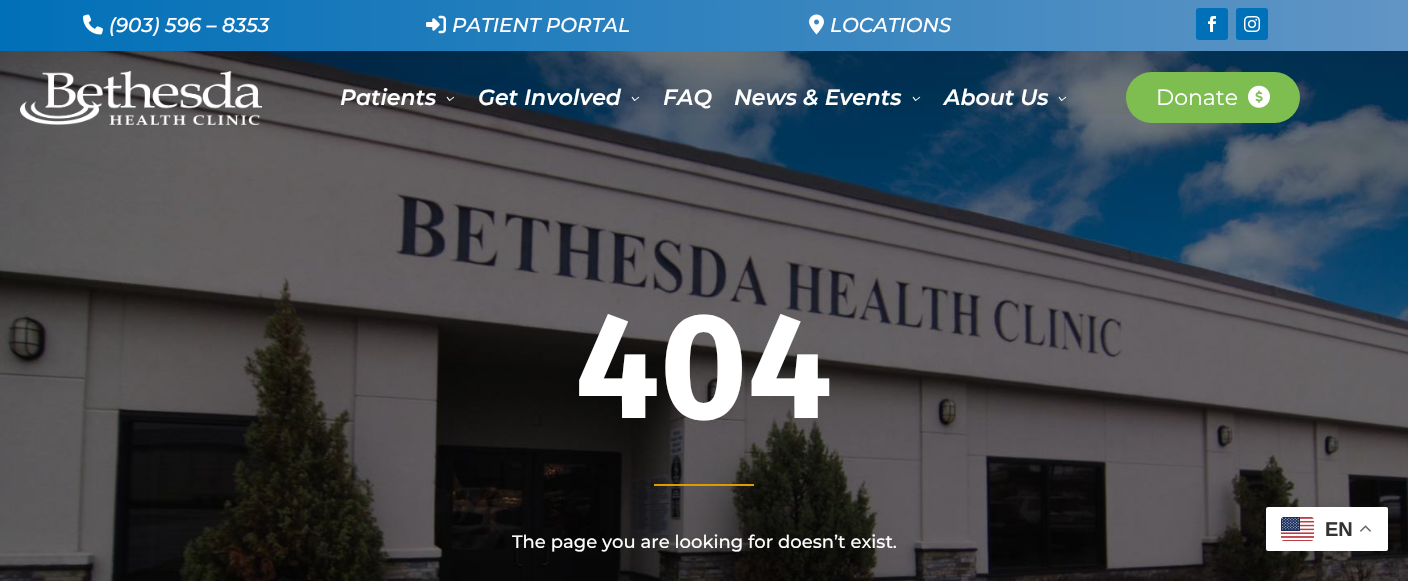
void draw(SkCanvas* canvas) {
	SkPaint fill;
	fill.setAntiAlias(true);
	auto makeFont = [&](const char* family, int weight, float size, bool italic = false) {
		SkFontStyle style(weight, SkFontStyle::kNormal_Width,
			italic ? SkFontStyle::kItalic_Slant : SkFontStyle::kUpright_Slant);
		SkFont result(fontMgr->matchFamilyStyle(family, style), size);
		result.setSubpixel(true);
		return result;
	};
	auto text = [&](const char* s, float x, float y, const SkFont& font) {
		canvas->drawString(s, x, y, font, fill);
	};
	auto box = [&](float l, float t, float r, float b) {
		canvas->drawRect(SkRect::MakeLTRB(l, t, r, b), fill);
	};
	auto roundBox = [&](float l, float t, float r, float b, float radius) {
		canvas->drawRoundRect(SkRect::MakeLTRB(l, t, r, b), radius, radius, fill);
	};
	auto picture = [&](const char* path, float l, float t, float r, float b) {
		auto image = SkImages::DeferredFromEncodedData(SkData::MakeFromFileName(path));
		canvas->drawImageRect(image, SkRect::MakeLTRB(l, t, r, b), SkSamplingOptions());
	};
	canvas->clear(0xFFFFFFFF);
	picture("image11.png", 0, 51, 1408, 581);
	{
		const SkColor colors[] = {0x1A0A0000, 0x000A0000};
		const float stops[] = {0, 1};
		const SkPoint ends[] = {{704, 0}, {704, 145}};
		fill.setShader(SkGradientShader::MakeLinear(ends, colors, stops, 2, SkTileMode::kClamp));
		fill.setAlpha(255);
	}
	box(0, 51, 1408, 114);
	{
		const SkColor colors[] = {0xFF0070B8, 0xFF6195C5};
		const float stops[] = {0, 1};
		const SkPoint ends[] = {{0, 26}, {1408, 25}};
		fill.setShader(SkGradientShader::MakeLinear(ends, colors, stops, 2, SkTileMode::kClamp));
		fill.setAlpha(255);
	}
	box(0, 0, 1408, 51);
	picture("image0.png", 83, 14, 103, 35);
	picture("image1.png", 426, 15, 446, 34);
	picture("image2.png", 809, 14, 824, 35);
	fill.setShader(nullptr);
	fill.setColor(0xFF0070B8);
	roundBox(1196, 8, 1228, 40, 3);
	picture("image3.png", 1208, 16, 1216, 32);
	roundBox(1236, 8, 1268, 40, 3);
	picture("image4.png", 1244, 16, 1260, 32);
	picture("image5.png", 20, 71, 262, 125);
	picture("image6.png", 446, 96, 455, 101);
	picture("image7.png", 631, 96, 640, 101);
	picture("image8.png", 912, 96, 921, 101);
	picture("image9.png", 1058, 96, 1067, 101);
	fill.setColor(0xFF7EBE50);
	roundBox(1126, 72, 1300, 123, 25.5f);
	picture("image10.png", 1248, 85, 1270, 108);
	fill.setColor(0xFFE09900);
	box(654, 484, 754, 486);
	fill.setColor(0x26000000);
	fill.setMaskFilter(SkMaskFilter::MakeBlur(kNormal_SkBlurStyle, 7.5f));
	canvas->drawRoundRect(SkRect::MakeLTRB(1266, 512, 1388, 556), 2, 2, fill);
	fill.setMaskFilter(nullptr);
	fill.setColor(0xFFFFFFFF);
	roundBox(1266, 507, 1388, 551, 2);
	picture("image12.png", 1281, 517, 1314, 541);
	picture("image13.png", 1360, 525, 1371, 532);
	auto font1 = makeFont("Montserrat", 100, 20, true);
	text("(903) 596 – 8353", 109, 32, font1);
	text("PATIENT PORTAL", 452, 32, font1);
	text("LOCATIONS", 830, 32, font1);
	auto font2 = makeFont("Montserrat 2", 100, 22, true);
	text("Patients", 340, 105, font2);
	text("Get Involved", 478, 105, font2);
	text("FAQ", 663, 105, font2);
	text("News & Events", 734, 105, font2);
	text("About Us", 944, 105, font2);
	auto font3 = makeFont("Montserrat 2", 100, 22);
	text("Donate", 1156, 105, font3);
	auto font4 = makeFont("Fira Sans", 700, 150);
	text("404", 575, 418, font4);
	auto font5 = makeFont("Montserrat", 100, 18);
	text("The page you are looking for doesn’t exist.", 512, 548, font5);
	auto font6 = makeFont("Liberation Sans", 700, 20);
	fill.setColor(0xFF333333);
	text("EN", 1325, 536, font6);
}
